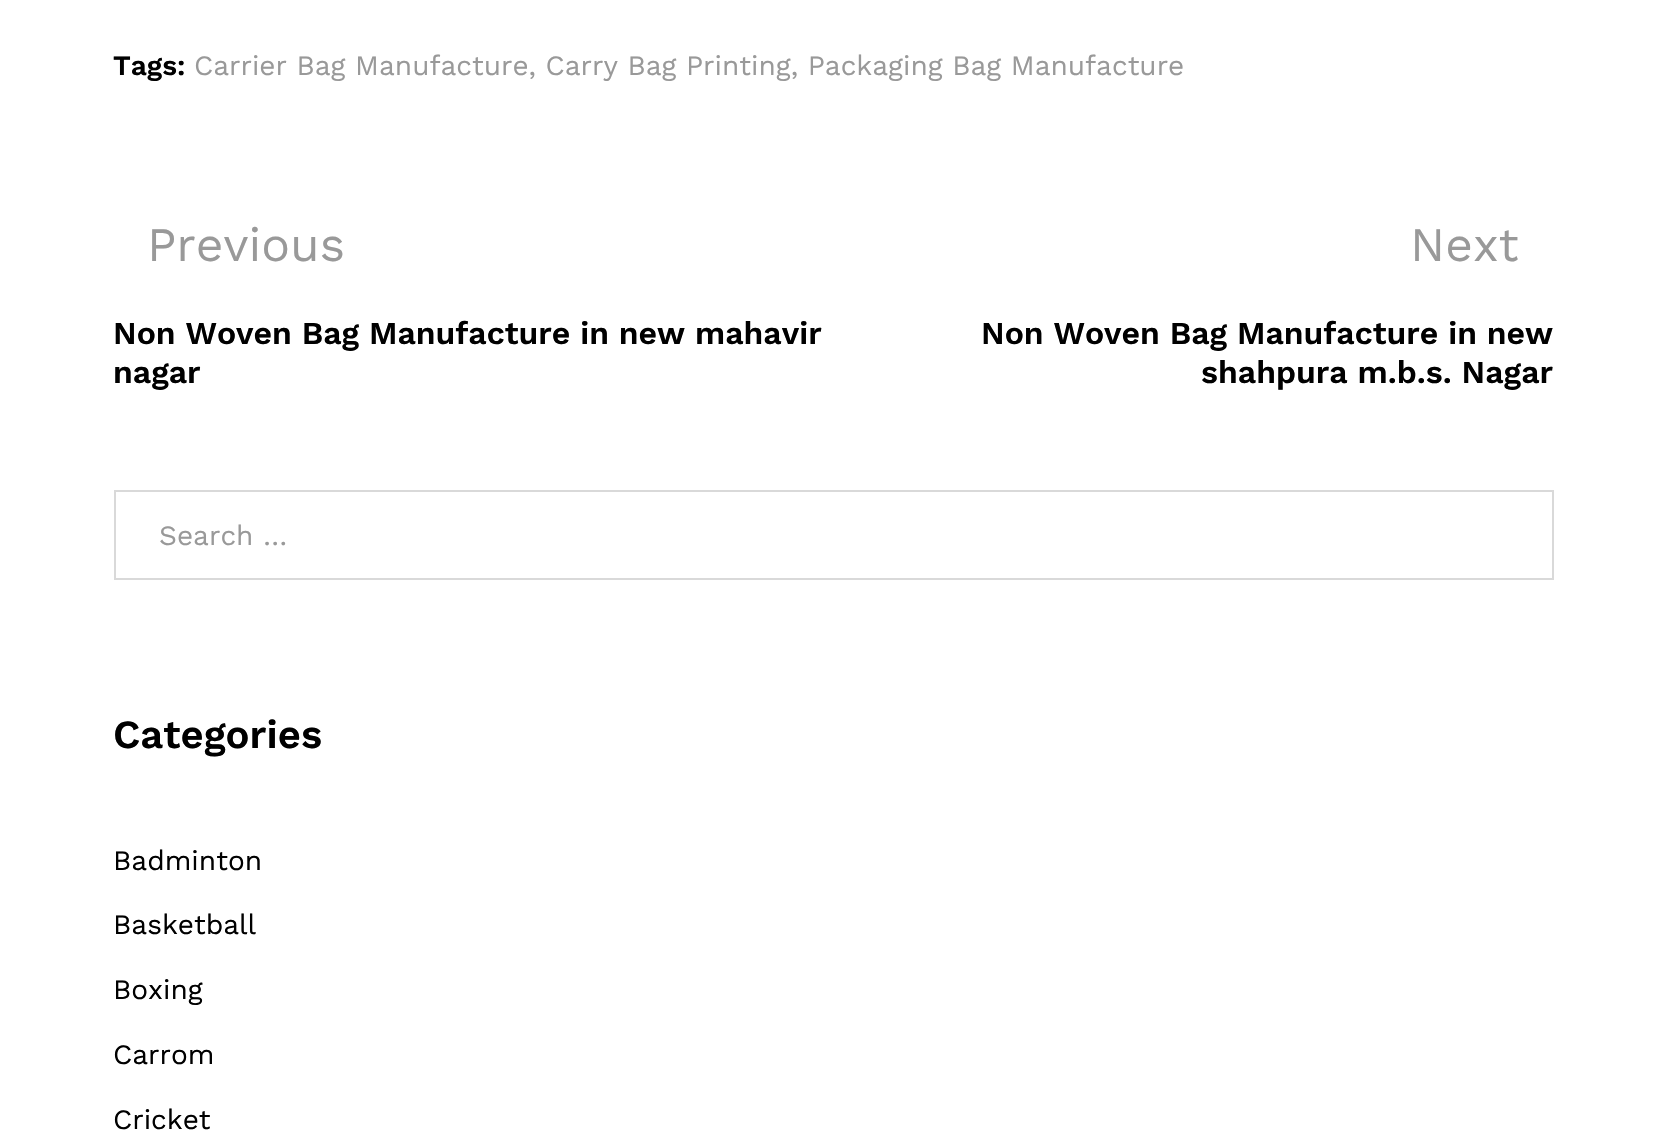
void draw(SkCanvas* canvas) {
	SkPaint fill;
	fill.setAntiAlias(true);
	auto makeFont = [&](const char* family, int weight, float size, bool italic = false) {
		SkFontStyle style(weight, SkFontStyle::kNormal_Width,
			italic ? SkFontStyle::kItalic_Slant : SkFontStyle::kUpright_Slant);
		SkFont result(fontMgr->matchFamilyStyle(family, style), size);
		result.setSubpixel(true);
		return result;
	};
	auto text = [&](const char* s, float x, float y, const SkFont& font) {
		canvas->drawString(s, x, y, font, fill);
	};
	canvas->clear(0xFFFFFFFF);
	fill.setStyle(SkPaint::kStroke_Style);
	fill.setStrokeWidth(2);
	fill.setColor(0xFFD9D9D9);
	canvas->drawRect(SkRect::MakeLTRB(115, 491, 1553, 579), fill);
	auto font1 = makeFont("Work Sans", 600, 28);
	fill.setStyle(SkPaint::kFill_Style);
	fill.setColor(0xFF000000);
	text("Tags:", 113, 75, font1);
	auto font2 = makeFont("Work Sans", 400, 28);
	fill.setColor(0xFF999999);
	text("Carrier Bag Manufacture, Carry Bag Printing, Packaging Bag Manufacture", 194, 75, font2);
	auto font3 = makeFont("Work Sans", 400, 48);
	text("Previous", 147, 261, font3);
	auto font4 = makeFont("Work Sans", 600, 32);
	fill.setColor(0xFF000000);
	text("Non Woven Bag Manufacture in new mahavir", 113, 344, font4);
	text("nagar", 113, 383, font4);
	fill.setColor(0xFF999999);
	text("Next", 1410, 261, font3);
	fill.setColor(0xFF000000);
	text("Non Woven Bag Manufacture in new", 981, 344, font4);
	text("shahpura m.b.s. Nagar", 1201, 383, font4);
	fill.setColor(0xFF999999);
	text("Search …", 159, 545, font2);
	auto font5 = makeFont("Work Sans", 600, 40);
	fill.setColor(0xFF000000);
	text("Categories", 113, 748, font5);
	text("Badminton", 113, 870, font2);
	text("Basketball", 113, 934, font2);
	text("Boxing", 113, 999, font2);
	text("Carrom", 113, 1064, font2);
	text("Cricket", 113, 1129, font2);
}
